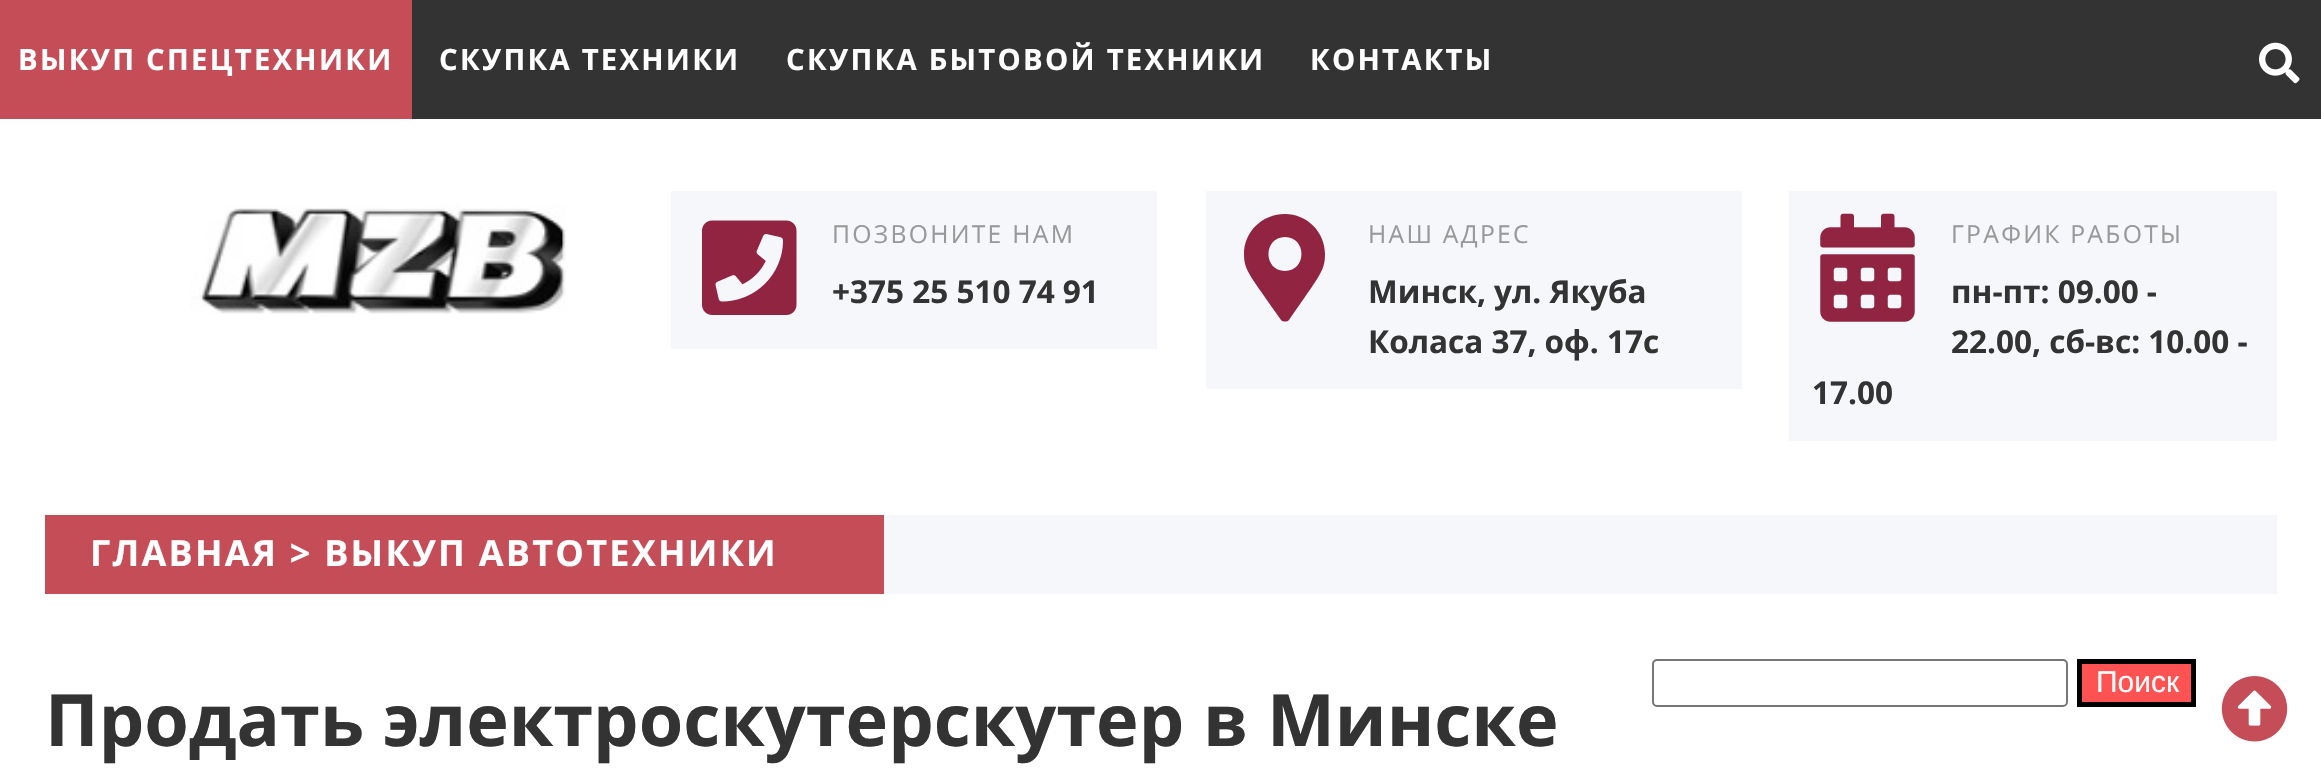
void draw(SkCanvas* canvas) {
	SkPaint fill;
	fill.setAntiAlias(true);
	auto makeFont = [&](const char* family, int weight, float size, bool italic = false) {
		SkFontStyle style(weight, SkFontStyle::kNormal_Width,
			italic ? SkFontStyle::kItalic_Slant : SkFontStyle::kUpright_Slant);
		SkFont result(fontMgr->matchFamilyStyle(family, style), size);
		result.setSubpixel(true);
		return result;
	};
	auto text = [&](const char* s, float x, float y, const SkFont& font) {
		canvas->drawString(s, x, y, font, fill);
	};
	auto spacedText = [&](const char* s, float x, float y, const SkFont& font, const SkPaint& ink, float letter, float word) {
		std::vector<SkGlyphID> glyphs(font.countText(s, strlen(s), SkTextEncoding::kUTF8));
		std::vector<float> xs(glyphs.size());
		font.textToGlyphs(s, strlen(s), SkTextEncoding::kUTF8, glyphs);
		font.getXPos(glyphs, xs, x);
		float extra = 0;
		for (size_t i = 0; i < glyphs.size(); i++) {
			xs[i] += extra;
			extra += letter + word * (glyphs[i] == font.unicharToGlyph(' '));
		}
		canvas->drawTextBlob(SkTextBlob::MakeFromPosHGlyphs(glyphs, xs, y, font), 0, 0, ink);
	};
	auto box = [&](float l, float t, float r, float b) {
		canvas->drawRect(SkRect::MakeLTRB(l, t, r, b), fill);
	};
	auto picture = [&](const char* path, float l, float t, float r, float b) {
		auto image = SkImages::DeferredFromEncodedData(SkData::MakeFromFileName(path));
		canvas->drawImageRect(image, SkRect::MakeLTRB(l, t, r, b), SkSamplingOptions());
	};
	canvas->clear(0xFFFFFFFF);
	fill.setColor(0xFF333333);
	box(412, 0, 2321, 119);
	fill.setColor(0xFFC44D58);
	box(0, 0, 412, 119);
	picture("image0.png", 2259, 42, 2300, 84);
	picture("image1.png", 190, 205, 566, 314);
	fill.setColor(0xFFF6F7FB);
	box(671, 191, 1157, 349);
	picture("image2.png", 702, 220, 797, 315);
	box(1206, 191, 1742, 389);
	fill.setColor(0xFF912441);
	canvas->drawPath(SkPathBuilder().moveTo(1281, 320).cubicTo(1250, 275, 1244, 271, 1244, 254).cubicTo(1244, 232, 1262, 214, 1285, 214).cubicTo(1307, 214, 1325, 232, 1325, 254).cubicTo(1325, 271, 1320, 275, 1289, 320).cubicTo(1287, 322, 1283, 322, 1281, 320).close().moveTo(1285, 271).cubicTo(1307, 271, 1307, 237, 1285, 237).cubicTo(1263, 237, 1263, 271, 1285, 271).close().detach(), fill);
	fill.setColor(0xFFF6F7FB);
	box(1789, 191, 2277, 441);
	picture("image3.png", 1820, 213, 1915, 322);
	box(884, 515, 2277, 594);
	fill.setColor(0xFFC44D58);
	box(45, 515, 884, 594);
	fill.setStyle(SkPaint::kStroke_Style);
	fill.setStrokeWidth(2);
	fill.setColor(0xFF767676);
	canvas->drawRoundRect(SkRect::MakeLTRB(1653, 660, 2067, 706), 4, 4, fill);
	fill.setStyle(SkPaint::kFill_Style);
	fill.setColor(0xFFFF5252);
	canvas->drawRect(SkRect::MakeLTRB(2079.5f, 661.5f, 2193.5f, 704.5f), fill);
	fill.setStyle(SkPaint::kStroke_Style);
	fill.setStrokeWidth(5);
	fill.setColor(0xFF000000);
	canvas->drawRect(SkRect::MakeLTRB(2079.5f, 661.5f, 2193.5f, 704.5f), fill);
	picture("image4.png", 2221, 676, 2288, 742);
	auto font1 = makeFont("Open Sans", 700, 29.25f);
	fill.setStyle(SkPaint::kFill_Style);
	fill.setColor(0xFFFFFFFF);
	spacedText("ВЫКУП СПЕЦТЕХНИКИ", 18, 70, font1, fill, 2.25f, 0);
	spacedText("СКУПКА ТЕХНИКИ", 439, 70, font1, fill, 2.25f, 0);
	spacedText("СКУПКА БЫТОВОЙ ТЕХНИКИ", 786, 70, font1, fill, 2.25f, 0);
	spacedText("КОНТАКТЫ", 1310, 70, font1, fill, 2.25f, 0);
	auto font2 = makeFont("Open Sans", 400, 24.75f);
	fill.setColor(0xFF999999);
	spacedText("ПОЗВОНИТЕ НАМ", 832, 243, font2, fill, 2.25f, 0);
	auto font3 = makeFont("Open Sans", 700, 31.5f);
	fill.setColor(0xFF333333);
	text("+375 25 510 74 91", 832, 303, font3);
	fill.setColor(0xFF999999);
	spacedText("НАШ АДРЕС", 1368, 243, font2, fill, 2.25f, 0);
	fill.setColor(0xFF333333);
	text("Минск, ул. Якуба", 1368, 303, font3);
	text("Коласа 37, оф. 17с", 1368, 353, font3);
	fill.setColor(0xFF999999);
	spacedText("ГРАФИК РАБОТЫ", 1951, 243, font2, fill, 2.25f, 0);
	fill.setColor(0xFF333333);
	text("пн-пт: 09.00 -", 1951, 303, font3);
	text("22.00, сб-вс: 10.00 -", 1951, 353, font3);
	text("17.00", 1812, 404, font3);
	auto font4 = makeFont("Open Sans", 700, 36);
	fill.setColor(0xFFFFFFFF);
	spacedText("ГЛАВНАЯ > ВЫКУП АВТОТЕХНИКИ", 90, 566, font4, fill, 2.25f, 0);
	auto font5 = makeFont("Liberation Sans", 400, 30);
	text("Поиск", 2096, 692, font5);
	auto font6 = makeFont("Open Sans", 700, 72);
	fill.setColor(0xFF333333);
	text("Продать электроскутерскутер в Минске", 45, 746, font6);
}
